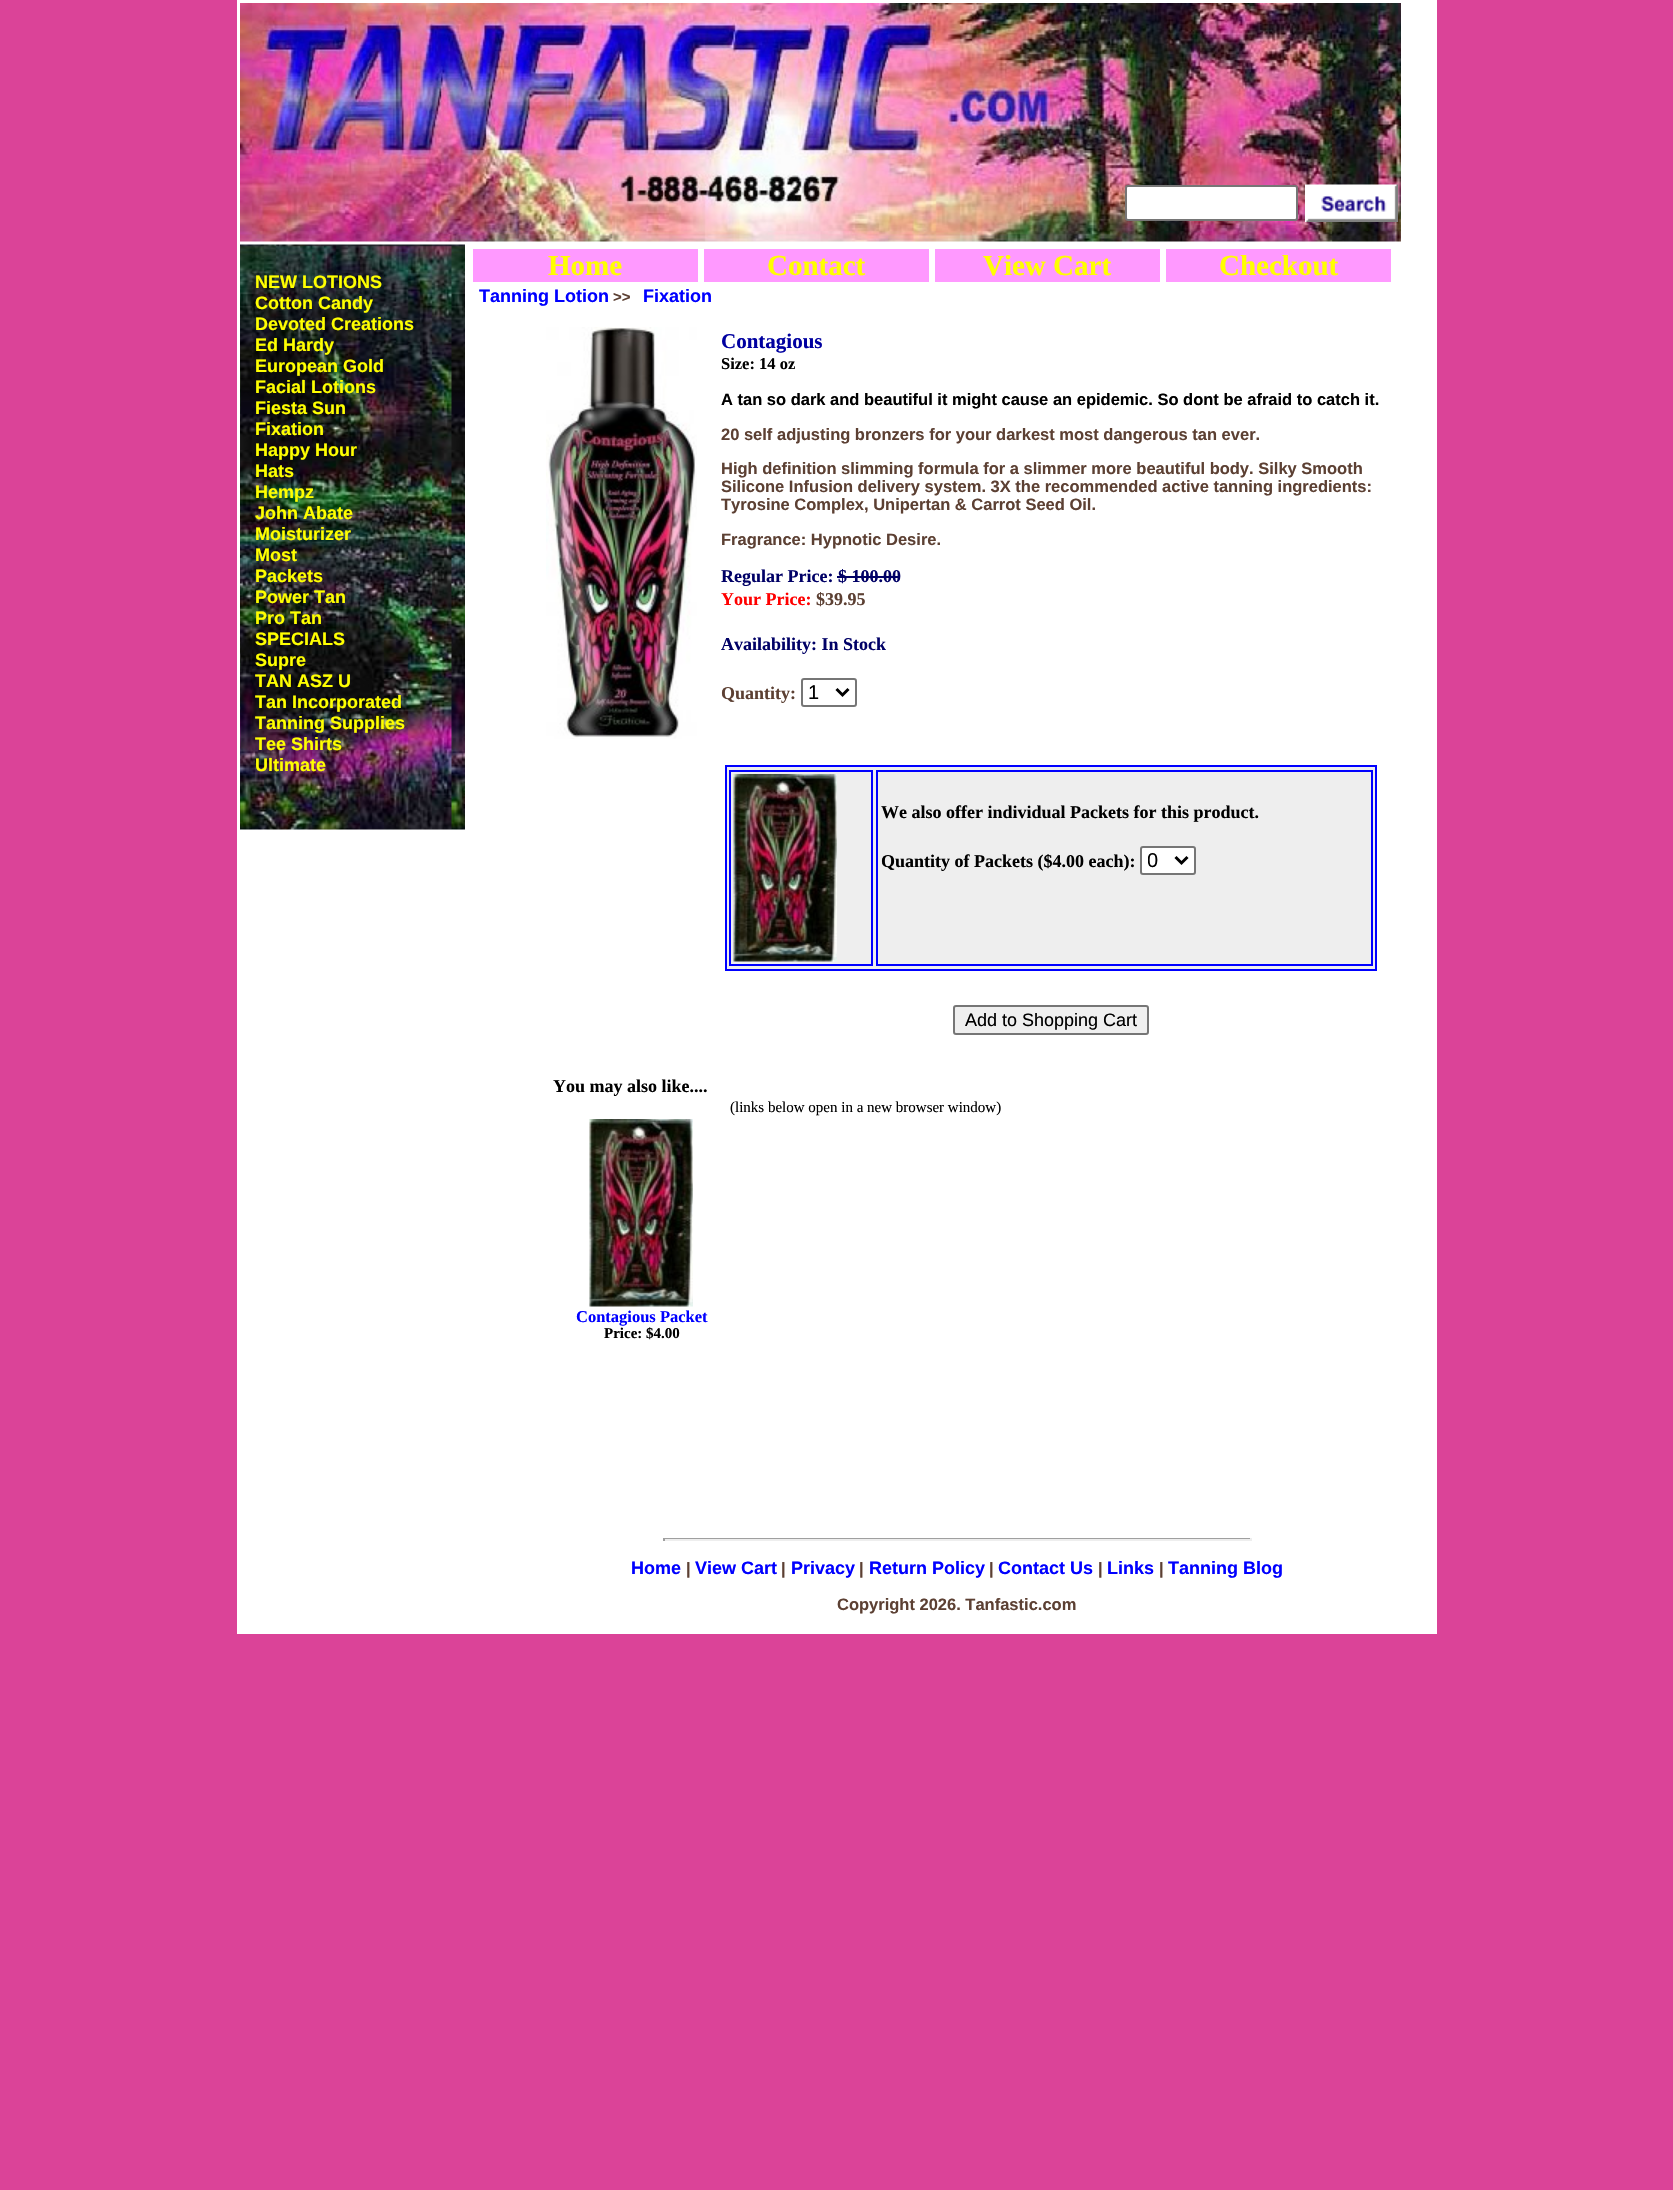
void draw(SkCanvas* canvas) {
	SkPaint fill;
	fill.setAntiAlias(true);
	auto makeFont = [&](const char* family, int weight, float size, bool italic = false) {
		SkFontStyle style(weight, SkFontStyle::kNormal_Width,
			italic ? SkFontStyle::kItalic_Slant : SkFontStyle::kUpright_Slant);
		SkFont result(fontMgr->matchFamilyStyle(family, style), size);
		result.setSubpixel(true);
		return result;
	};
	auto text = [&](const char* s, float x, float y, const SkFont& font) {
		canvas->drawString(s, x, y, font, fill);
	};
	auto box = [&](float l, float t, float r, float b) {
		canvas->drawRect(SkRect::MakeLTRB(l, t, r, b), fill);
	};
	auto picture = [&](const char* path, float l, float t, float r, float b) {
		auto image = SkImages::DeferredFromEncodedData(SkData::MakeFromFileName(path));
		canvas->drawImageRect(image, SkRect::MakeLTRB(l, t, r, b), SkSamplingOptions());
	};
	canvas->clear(0xFFDB4398);
	fill.setColor(0xFFFFFFFF);
	box(237, 0, 1437, 1634);
	picture("image0.png", 240, 3, 1401, 242);
	canvas->drawRoundRect(SkRect::MakeLTRB(1126, 186, 1297, 220), 2, 2, fill);
	fill.setStyle(SkPaint::kStroke_Style);
	fill.setStrokeWidth(2);
	fill.setColor(0xFF767676);
	canvas->drawRoundRect(SkRect::MakeLTRB(1126, 186, 1297, 220), 2, 2, fill);
	picture("image1.png", 1305, 184, 1398, 222);
	picture("image2.png", 240, 244, 465, 830);
	fill.setStyle(SkPaint::kFill_Style);
	fill.setColor(0xFFFF99FF);
	box(473, 249, 698, 282);
	box(704, 249, 929, 282);
	box(935, 249, 1160, 282);
	box(1166, 249, 1391, 282);
	picture("image3.png", 546, 327, 697, 739);
	fill.setColor(0xFF000066);
	box(837, 576, 900, 578);
	fill.setStyle(SkPaint::kStroke_Style);
	fill.setColor(0xFF767676);
	canvas->drawRoundRect(SkRect::MakeLTRB(802, 679, 856, 706), 2, 2, fill);
	fill.setStrokeWidth(3);
	fill.setColor(0xFF000000);
	canvas->drawPath(SkPathBuilder().moveTo(836.5f, 689).lineTo(842.5f, 695).lineTo(848.5f, 689).detach(), fill);
	fill.setStyle(SkPaint::kFill_Style);
	fill.setColor(0xFFEEEEEE);
	canvas->drawRect(SkRect::MakeLTRB(726, 766, 1376, 970), fill);
	fill.setStyle(SkPaint::kStroke_Style);
	fill.setStrokeWidth(2);
	fill.setColor(0xFF0000FF);
	canvas->drawRect(SkRect::MakeLTRB(726, 766, 1376, 970), fill);
	canvas->drawRect(SkRect::MakeLTRB(730, 771, 872, 965), fill);
	picture("image4.png", 733, 774, 837, 962);
	canvas->drawRect(SkRect::MakeLTRB(877, 771, 1372, 965), fill);
	fill.setStyle(SkPaint::kFill_Style);
	fill.setColor(0xFFFFFFFF);
	canvas->drawRoundRect(SkRect::MakeLTRB(1141, 847, 1195, 874), 2, 2, fill);
	fill.setStyle(SkPaint::kStroke_Style);
	fill.setColor(0xFF767676);
	canvas->drawRoundRect(SkRect::MakeLTRB(1141, 847, 1195, 874), 2, 2, fill);
	fill.setStrokeWidth(3);
	fill.setColor(0xFF000000);
	canvas->drawPath(SkPathBuilder().moveTo(1175.5f, 857).lineTo(1181.5f, 863).lineTo(1187.5f, 857).detach(), fill);
	fill.setStyle(SkPaint::kFill_Style);
	fill.setColor(0xFFEFEFEF);
	canvas->drawRoundRect(SkRect::MakeLTRB(954, 1006, 1148, 1034), 2, 2, fill);
	fill.setStyle(SkPaint::kStroke_Style);
	fill.setStrokeWidth(2);
	fill.setColor(0xFF767676);
	canvas->drawRoundRect(SkRect::MakeLTRB(954, 1006, 1148, 1034), 2, 2, fill);
	picture("image5.png", 589, 1119, 693, 1307);
	fill.setStyle(SkPaint::kFill_Style);
	fill.setColor(0xFF9F9F9F);
	box(663, 1538, 1251, 1539);
	fill.setColor(0xFFEEEEEE);
	box(1250, 1538, 1252, 1541);
	box(663, 1539, 1251, 1541);
	fill.setColor(0xFF9F9F9F);
	box(663, 1538, 665, 1541);
	auto font1 = makeFont("Liberation Sans", 700, 18);
	fill.setColor(0xFFFFFF00);
	text("NEW LOTIONS", 255, 288, font1);
	text("Cotton Candy", 255, 309, font1);
	text("Devoted Creations", 255, 330, font1);
	text("Ed Hardy", 255, 351, font1);
	text("European Gold", 255, 372, font1);
	text("Facial Lotions", 255, 393, font1);
	text("Fiesta Sun", 255, 414, font1);
	text("Fixation", 255, 435, font1);
	text("Happy Hour", 255, 456, font1);
	text("Hats", 255, 477, font1);
	text("Hempz", 255, 498, font1);
	text("John Abate", 255, 519, font1);
	text("Moisturizer", 255, 540, font1);
	text("Most", 255, 561, font1);
	text("Packets", 255, 582, font1);
	text("Power Tan", 255, 603, font1);
	text("Pro Tan", 255, 624, font1);
	text("SPECIALS", 255, 645, font1);
	text("Supre", 255, 666, font1);
	text("TAN ASZ U", 255, 687, font1);
	text("Tan Incorporated", 255, 708, font1);
	text("Tanning Supplies", 255, 729, font1);
	text("Tee Shirts", 255, 750, font1);
	text("Ultimate", 255, 771, font1);
	auto font2 = makeFont("Liberation Serif", 700, 29);
	text("Home", 548, 275, font2);
	text("Contact", 767, 275, font2);
	text("View Cart", 983, 275, font2);
	text("Checkout", 1219, 275, font2);
	fill.setColor(0xFF0000FF);
	text("Tanning Lotion", 479, 302, font1);
	auto font3 = makeFont("Liberation Sans", 700, 15);
	fill.setColor(0xFF5C4033);
	text(">>", 613, 302, font3);
	fill.setColor(0xFF0000FF);
	text("Fixation", 643, 302, font1);
	auto font4 = makeFont("Liberation Serif", 700, 21);
	fill.setColor(0xFF0000A0);
	text("Contagious", 721, 348, font4);
	auto font5 = makeFont("Liberation Serif", 700, 16.5f);
	fill.setColor(0xFF000000);
	text("Size: 14 oz", 721, 369, font5);
	auto font6 = makeFont("Liberation Sans", 700, 16.5f);
	text("A tan so dark and beautiful it might cause an epidemic. So dont be afraid to catch it.", 721, 405, font6);
	fill.setColor(0xFF5C4033);
	text("20 self adjusting bronzers for your darkest most dangerous tan ever.", 721, 440, font6);
	text("High definition slimming formula for a slimmer more beautiful body. Silky Smooth", 721, 474, font6);
	text("Silicone Infusion delivery system. 3X the recommended active tanning ingredients:", 721, 492, font6);
	text("Tyrosine Complex, Unipertan & Carrot Seed Oil.", 721, 510, font6);
	text("Fragrance: Hypnotic Desire.", 721, 545, font6);
	auto font7 = makeFont("Liberation Serif", 700, 18);
	fill.setColor(0xFF000066);
	text("Regular Price: $ 100.00", 721, 582, font7);
	fill.setColor(0xFFFF0000);
	text("Your Price:", 721, 605, font7);
	fill.setColor(0xFF5C4033);
	text("$39.95", 816, 605, font7);
	fill.setColor(0xFF000066);
	text("Availability: In Stock", 721, 650, font7);
	fill.setColor(0xFF5C4033);
	text("Quantity:", 721, 699, font7);
	auto font8 = makeFont("Liberation Sans", 400, 20);
	fill.setColor(0xFF000000);
	text("1", 808, 699, font8);
	text("We also offer individual Packets for this product.", 881, 818, font7);
	text("Quantity of Packets ($4.00 each):", 881, 867, font7);
	canvas->save();
	canvas->clipRect(SkRect::MakeLTRB(1148, 848, 1170, 873));
	text("0", 1147, 867, font8);
	canvas->restore();
	auto font9 = makeFont("Liberation Sans", 400, 18);
	text("Add to Shopping Cart", 965, 1026, font9);
	text("You may also like....", 553, 1092, font7);
	auto font10 = makeFont("Liberation Serif", 400, 15);
	text("(links below open in a new browser window)", 730, 1112, font10);
	fill.setColor(0xFF0000FF);
	text("Contagious Packet", 576, 1322, font5);
	auto font11 = makeFont("Liberation Serif", 700, 15);
	fill.setColor(0xFF000000);
	text("Price: $4.00", 604, 1338, font11);
	fill.setColor(0xFF0000FF);
	text("Home", 631, 1574, font1);
	fill.setColor(0xFF5C4033);
	text("|", 686, 1574, font6);
	fill.setColor(0xFF0000FF);
	text("View Cart", 695, 1574, font1);
	fill.setColor(0xFF5C4033);
	text("|", 781, 1574, font6);
	fill.setColor(0xFF0000FF);
	text("Privacy", 791, 1574, font1);
	fill.setColor(0xFF5C4033);
	text("|", 859, 1574, font6);
	fill.setColor(0xFF0000FF);
	text("Return Policy", 869, 1574, font1);
	fill.setColor(0xFF5C4033);
	text("|", 989, 1574, font6);
	fill.setColor(0xFF0000FF);
	text("Contact Us", 998, 1574, font1);
	fill.setColor(0xFF5C4033);
	text("|", 1098, 1574, font6);
	fill.setColor(0xFF0000FF);
	text("Links", 1107, 1574, font1);
	fill.setColor(0xFF5C4033);
	text("|", 1159, 1574, font6);
	fill.setColor(0xFF0000FF);
	text("Tanning Blog", 1168, 1574, font1);
	fill.setColor(0xFF5C4033);
	text("Copyright 2026. Tanfastic.com", 837, 1610, font6);
}
